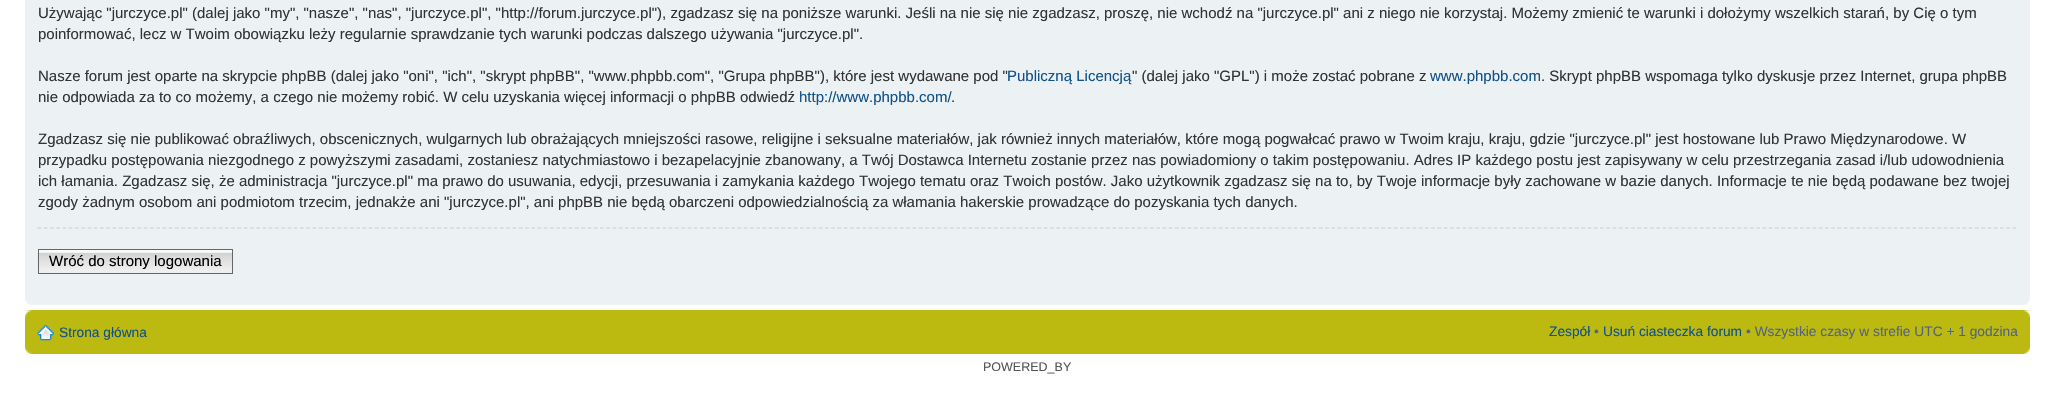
void draw(SkCanvas* canvas) {
	SkPaint fill;
	fill.setAntiAlias(true);
	auto makeFont = [&](const char* family, int weight, float size, bool italic = false) {
		SkFontStyle style(weight, SkFontStyle::kNormal_Width,
			italic ? SkFontStyle::kItalic_Slant : SkFontStyle::kUpright_Slant);
		SkFont result(fontMgr->matchFamilyStyle(family, style), size);
		result.setSubpixel(true);
		return result;
	};
	auto text = [&](const char* s, float x, float y, const SkFont& font) {
		canvas->drawString(s, x, y, font, fill);
	};
	auto box = [&](float l, float t, float r, float b) {
		canvas->drawRect(SkRect::MakeLTRB(l, t, r, b), fill);
	};
	auto picture = [&](const char* path, float l, float t, float r, float b) {
		auto image = SkImages::DeferredFromEncodedData(SkData::MakeFromFileName(path));
		canvas->drawImageRect(image, SkRect::MakeLTRB(l, t, r, b), SkSamplingOptions());
	};
	canvas->clear(0xFFFFFFFF);
	fill.setColor(0xFFECF1F3);
	box(25, 0, 2030, 305);
	fill.setStyle(SkPaint::kStroke_Style);
	fill.setStrokeWidth(1.2f);
	fill.setColor(0xFFCCCCCC);
	fill.setPathEffect(SkDashPathEffect::Make({{3.75f, 2.5f}}, 0));
	canvas->drawPath(SkPathBuilder().moveTo(37.5f, 228).lineTo(2017.5f, 228).detach(), fill);
	fill.setPathEffect(nullptr);
	picture("image0.png", 37, 252, 232, 274);
	fill.setStyle(SkPaint::kFill_Style);
	fill.setColor(0xFFFAFAFA);
	box(39, 250, 232, 252);
	fill.setStyle(SkPaint::kStroke_Style);
	fill.setStrokeWidth(1);
	fill.setColor(0xFF666666);
	canvas->drawRect(SkRect::MakeLTRB(38.5f, 249.5f, 232.5f, 273.5f), fill);
	picture("image1.png", 25, 299, 31, 305);
	picture("image2.png", 2024, 299, 2030, 305);
	fill.setStyle(SkPaint::kFill_Style);
	fill.setColor(0xFFBCBA11);
	box(25, 310, 2030, 354);
	picture("image3.png", 25, 310, 32, 317);
	picture("image4.png", 2023, 310, 2030, 317);
	picture("image5.png", 37, 325, 54, 341);
	picture("image6.png", 25, 347, 32, 354);
	picture("image7.png", 2023, 347, 2030, 354);
	auto font1 = makeFont("Liberation Sans", 400, 15);
	fill.setColor(0xFF333333);
	text("Używając \"jurczyce.pl\" (dalej jako \"my\", \"nasze\", \"nas\", \"jurczyce.pl\", \"http://forum.jurczyce.pl\"), zgadzasz się na poniższe warunki. Jeśli na nie się nie zgadzasz, proszę, nie wchodź na \"jurczyce.pl\" ani z niego nie korzystaj. Możemy zmienić te warunki i dołożymy wszelkich starań, by Cię o tym", 38, 18, font1);
	text("poinformować, lecz w Twoim obowiązku leży regularnie sprawdzanie tych warunki podczas dalszego używania \"jurczyce.pl\".", 38, 39, font1);
	text("Nasze forum jest oparte na skrypcie phpBB (dalej jako \"oni\", \"ich\", \"skrypt phpBB\", \"www.phpbb.com\", \"Grupa phpBB\"), które jest wydawane pod \"", 38, 81, font1);
	fill.setColor(0xFF105289);
	text("Publiczną Licencją", 1007, 81, font1);
	fill.setColor(0xFF333333);
	text("\" (dalej jako \"GPL\") i może zostać pobrane z", 1132, 81, font1);
	fill.setColor(0xFF105289);
	text("www.phpbb.com", 1430, 81, font1);
	fill.setColor(0xFF333333);
	text(". Skrypt phpBB wspomaga tylko dyskusje przez Internet, grupa phpBB", 1541, 81, font1);
	text("nie odpowiada za to co możemy, a czego nie możemy robić. W celu uzyskania więcej informacji o phpBB odwiedź", 38, 102, font1);
	fill.setColor(0xFF105289);
	text("http://www.phpbb.com/", 799, 102, font1);
	fill.setColor(0xFF333333);
	text(".", 951, 102, font1);
	text("Zgadzasz się nie publikować obraźliwych, obscenicznych, wulgarnych lub obrażających mniejszości rasowe, religijne i seksualne materiałów, jak również innych materiałów, które mogą pogwałcać prawo w Twoim kraju, kraju, gdzie \"jurczyce.pl\" jest hostowane lub Prawo Międzynarodowe. W", 38, 144, font1);
	text("przypadku postępowania niezgodnego z powyższymi zasadami, zostaniesz natychmiastowo i bezapelacyjnie zbanowany, a Twój Dostawca Internetu zostanie przez nas powiadomiony o takim postępowaniu. Adres IP każdego postu jest zapisywany w celu przestrzegania zasad i/lub udowodnienia", 38, 165, font1);
	text("ich łamania. Zgadzasz się, że administracja \"jurczyce.pl\" ma prawo do usuwania, edycji, przesuwania i zamykania każdego Twojego tematu oraz Twoich postów. Jako użytkownik zgadzasz się na to, by Twoje informacje były zachowane w bazie danych. Informacje te nie będą podawane bez twojej", 38, 186, font1);
	text("zgody żadnym osobom ani podmiotom trzecim, jednakże ani \"jurczyce.pl\", ani phpBB nie będą obarczeni odpowiedzialnością za włamania hakerskie prowadzące do pozyskania tych danych.", 38, 207, font1);
	fill.setColor(0xFF000000);
	text("Wróć do strony logowania", 49, 266, font1);
	auto font2 = makeFont("Liberation Sans", 400, 13.75f);
	fill.setColor(0xFF105289);
	text("Strona główna", 59, 337, font2);
	text("Zespół", 1549, 336, font2);
	fill.setColor(0xFF536482);
	text("•", 1594, 336, font2);
	fill.setColor(0xFF105289);
	text("Usuń ciasteczka forum", 1603, 336, font2);
	fill.setColor(0xFF536482);
	text("• Wszystkie czasy w strefie UTC + 1 godzina", 1746, 336, font2);
	auto font3 = makeFont("Liberation Sans", 400, 12.5f);
	fill.setColor(0xFF555555);
	text("POWERED_BY", 983, 371, font3);
}
